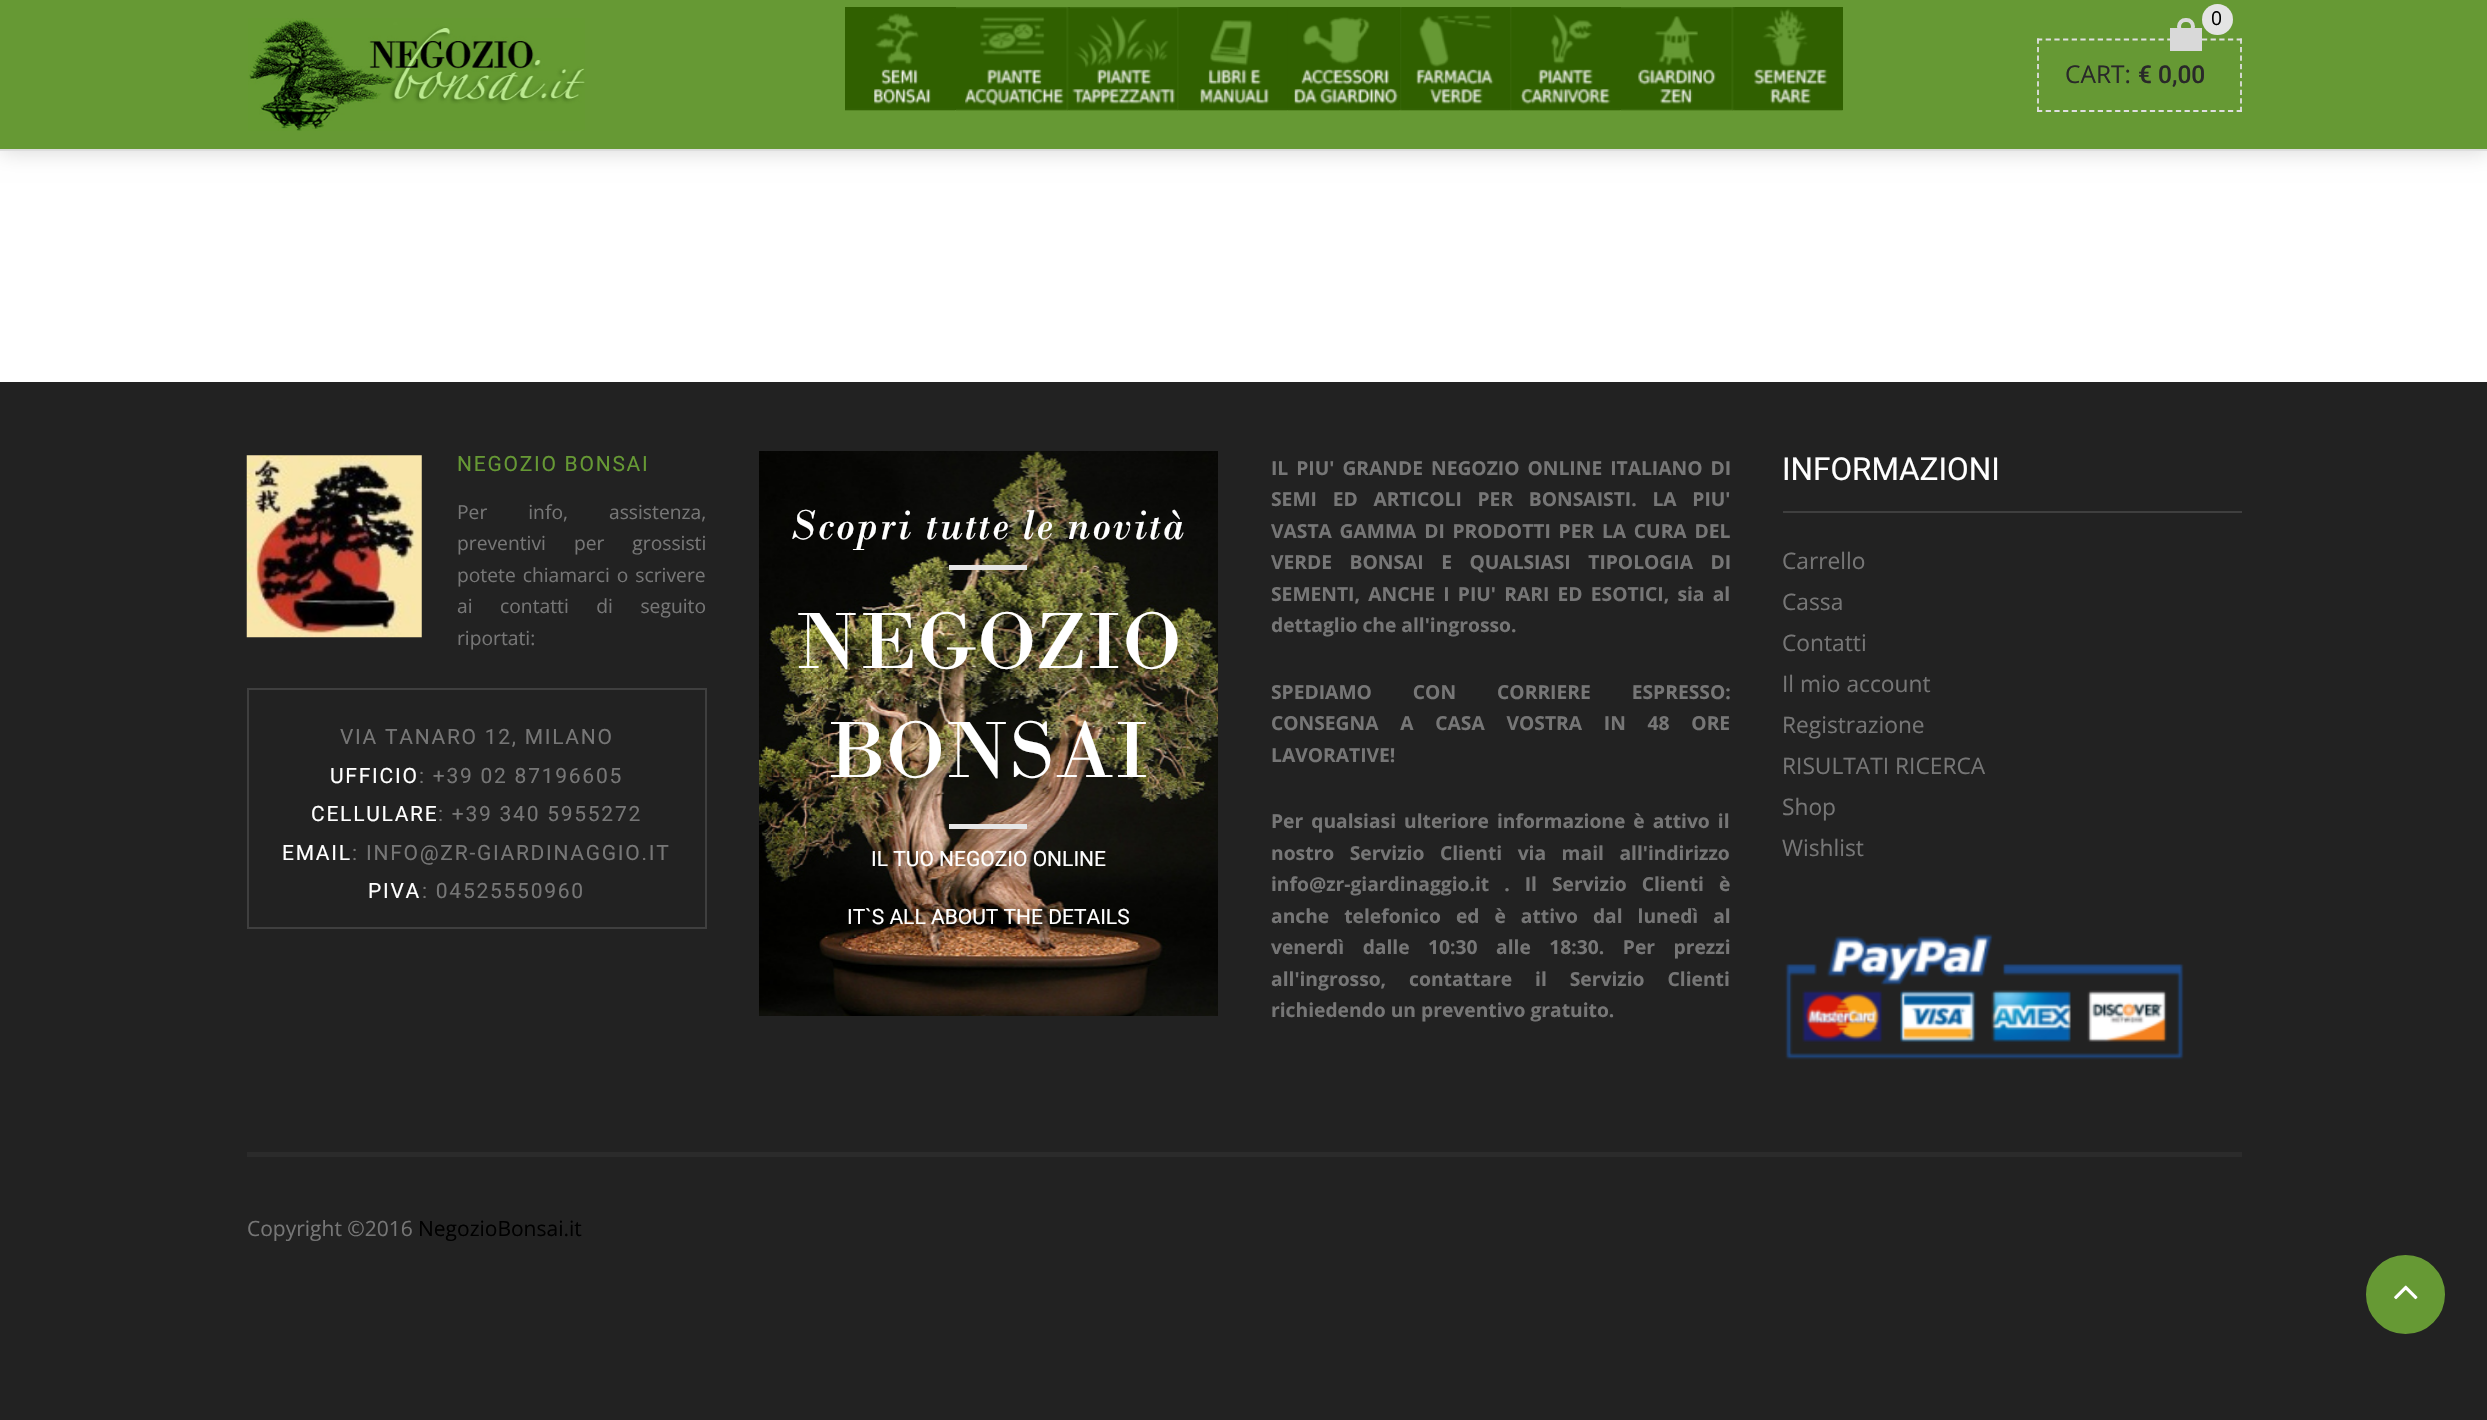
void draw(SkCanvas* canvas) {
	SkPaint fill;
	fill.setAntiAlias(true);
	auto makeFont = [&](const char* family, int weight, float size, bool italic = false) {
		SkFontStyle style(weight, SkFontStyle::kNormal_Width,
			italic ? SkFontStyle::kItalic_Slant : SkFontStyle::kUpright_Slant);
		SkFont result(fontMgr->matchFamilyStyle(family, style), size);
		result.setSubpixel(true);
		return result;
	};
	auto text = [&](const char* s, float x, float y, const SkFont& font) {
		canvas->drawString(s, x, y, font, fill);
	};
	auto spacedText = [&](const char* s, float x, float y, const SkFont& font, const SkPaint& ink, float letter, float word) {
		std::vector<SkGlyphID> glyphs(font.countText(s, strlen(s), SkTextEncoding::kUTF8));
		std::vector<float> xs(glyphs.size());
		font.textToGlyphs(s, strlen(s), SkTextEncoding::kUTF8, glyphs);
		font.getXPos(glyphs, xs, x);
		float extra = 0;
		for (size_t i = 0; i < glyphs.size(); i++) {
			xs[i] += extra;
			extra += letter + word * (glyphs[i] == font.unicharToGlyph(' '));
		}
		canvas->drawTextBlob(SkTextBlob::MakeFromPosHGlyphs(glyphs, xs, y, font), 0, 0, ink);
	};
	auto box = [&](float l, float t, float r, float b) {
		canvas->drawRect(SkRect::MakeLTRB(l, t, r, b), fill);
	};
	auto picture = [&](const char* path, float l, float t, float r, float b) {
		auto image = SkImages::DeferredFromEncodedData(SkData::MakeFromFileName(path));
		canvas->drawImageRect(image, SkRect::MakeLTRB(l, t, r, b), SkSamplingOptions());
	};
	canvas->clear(0xFFFFFFFF);
	fill.setColor(0x26000000);
	fill.setMaskFilter(SkMaskFilter::MakeBlur(kNormal_SkBlurStyle, 10.5f));
	canvas->drawRect(SkRect::MakeLTRB(0, 2, 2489, 152), fill);
	fill.setMaskFilter(nullptr);
	fill.setColor(0xFF669934);
	box(0, 0, 2487, 149);
	fill.setColor(0xFFDDDDDD);
	box(0, 149, 2487, 151);
	picture("image0.png", 248, 18, 585, 131);
	fill.setColor(0xFF306000);
	box(845, 7, 956, 110);
	picture("image1.png", 845, 13, 956, 111);
	picture("image2.png", 956, 7, 1068, 111);
	fill.setColor(0xFF45701A);
	box(1068, 7, 1070, 110);
	picture("image3.png", 1067, 7, 1178, 111);
	fill.setColor(0xFF306000);
	box(1180, 7, 1400, 110);
	fill.setColor(0xFF45701A);
	box(1178, 7, 1180, 110);
	picture("image4.png", 1177, 7, 1288, 111);
	picture("image5.png", 1288, 7, 1400, 111);
	fill.setColor(0xFF306000);
	box(1402, 7, 1510, 110);
	fill.setColor(0xFF45701A);
	box(1400, 7, 1402, 110);
	picture("image6.png", 1400, 7, 1511, 111);
	fill.setColor(0xFF306000);
	box(1512, 7, 1621, 110);
	fill.setColor(0xFF45701A);
	box(1510, 7, 1512, 110);
	picture("image7.png", 1510, 7, 1621, 111);
	picture("image8.png", 1621, 7, 1733, 111);
	fill.setColor(0xFF306000);
	box(1735, 7, 1843, 110);
	fill.setColor(0xFF45701A);
	box(1733, 7, 1735, 110);
	picture("image9.png", 1732, 7, 1843, 111);
	fill.setStyle(SkPaint::kStroke_Style);
	fill.setStrokeWidth(1.8f);
	fill.setColor(0xFFDFDFDF);
	fill.setPathEffect(SkDashPathEffect::Make({{5.25f, 3.43f}}, 0));
	canvas->drawPath(SkPathBuilder().moveTo(2037, 39.5f).lineTo(2242, 39.5f).detach(), fill);
	fill.setPathEffect(nullptr);
	fill.setPathEffect(SkDashPathEffect::Make({{5.25f, 3.29f}}, 0));
	canvas->drawPath(SkPathBuilder().moveTo(2241, 38.5f).lineTo(2241, 112).detach(), fill);
	fill.setPathEffect(nullptr);
	fill.setPathEffect(SkDashPathEffect::Make({{5.25f, 3.43f}}, 0));
	canvas->drawPath(SkPathBuilder().moveTo(2037, 111).lineTo(2242, 111).detach(), fill);
	fill.setPathEffect(nullptr);
	fill.setPathEffect(SkDashPathEffect::Make({{5.25f, 3.29f}}, 0));
	canvas->drawPath(SkPathBuilder().moveTo(2038, 38.5f).lineTo(2038, 112).detach(), fill);
	fill.setPathEffect(nullptr);
	fill.setStyle(SkPaint::kFill_Style);
	fill.setColor(0xFFD9D9D9);
	box(2170, 28, 2202, 51);
	fill.setStyle(SkPaint::kStroke_Style);
	fill.setStrokeWidth(4);
	canvas->drawRoundRect(SkRect::MakeLTRB(2179, 20, 2193, 33), 6.5f, 6.5f, fill);
	fill.setStyle(SkPaint::kFill_Style);
	fill.setColor(0xFFE4E4E4);
	canvas->drawCircle(2217.5f, 19.5f, 15.5f, fill);
	fill.setColor(0xFF222222);
	box(0, 382, 2487, 1420);
	picture("image10.png", 246, 455, 422, 638);
	fill.setStyle(SkPaint::kStroke_Style);
	fill.setStrokeWidth(2);
	fill.setColor(0xFF3F3F3F);
	canvas->drawRect(SkRect::MakeLTRB(248, 689, 706, 928), fill);
	picture("image11.png", 759, 451, 1218, 1016);
	fill.setStyle(SkPaint::kFill_Style);
	fill.setColor(0xFFE6E6E6);
	box(949, 565, 1027, 570);
	box(949, 824, 1027, 829);
	fill.setColor(0xFF3F3F3F);
	box(1783, 511, 2242, 513);
	picture("image12.png", 1785, 934, 2184, 1060);
	fill.setColor(0xFF2B2B2B);
	box(247, 1152, 2242, 1157);
	fill.setColor(0xFF669934);
	canvas->drawCircle(2405.5f, 1294.5f, 37.5f, fill);
	fill.setStyle(SkPaint::kStroke_Style);
	fill.setStrokeWidth(4);
	canvas->drawCircle(2405.5f, 1294.5f, 37.5f, fill);
	picture("image13.png", 2394, 1285, 2418, 1300);
	auto font1 = makeFont("Open Sans", 400, 19.25f);
	fill.setStyle(SkPaint::kFill_Style);
	fill.setColor(0xFF000000);
	text("0", 2211, 25, font1);
	auto font2 = makeFont("Open Sans", 400, 24.5f);
	fill.setColor(0xFF292929);
	text("CART:", 2065, 83, font2);
	auto font3 = makeFont("Roboto", 500, 24.5f);
	text("€ 0,00", 2138, 83, font3);
	auto font4 = makeFont("Roboto", 400, 21);
	fill.setColor(0xFF669934);
	spacedText("NEGOZIO BONSAI", 457, 471, font4, fill, 1.75f, 0);
	fill.setColor(0xFF767676);
	spacedText("Per info, assistenza,", 457, 519, font1, fill, 0, 36);
	spacedText("preventivi per grossisti", 457, 550, font1, fill, 0, 23);
	spacedText("potete chiamarci o scrivere", 457, 582, font1, fill, 0, 2);
	spacedText("ai contatti di seguito", 457, 613, font1, fill, 0, 22.5f);
	text("riportati:", 457, 645, font1);
	spacedText("VIA TANARO 12, MILANO", 340, 744, font4, fill, 1.75f, 0);
	fill.setColor(0xFFFFFFFF);
	spacedText("UFFICIO", 330, 783, font4, fill, 1.75f, 0);
	fill.setColor(0xFF767676);
	spacedText(": +39 02 87196605", 419, 783, font4, fill, 1.75f, 0);
	fill.setColor(0xFFFFFFFF);
	spacedText("CELLULARE", 311, 821, font4, fill, 1.75f, 0);
	fill.setColor(0xFF767676);
	spacedText(": +39 340 5955272", 438, 821, font4, fill, 1.75f, 0);
	fill.setColor(0xFFFFFFFF);
	spacedText("EMAIL", 282, 860, font4, fill, 1.75f, 0);
	fill.setColor(0xFF767676);
	spacedText(":", 352, 860, font4, fill, 1.75f, 0);
	spacedText("INFO@ZR-GIARDINAGGIO.IT", 366, 860, font4, fill, 1.75f, 0);
	fill.setColor(0xFFFFFFFF);
	spacedText("PIVA", 368, 898, font4, fill, 1.75f, 0);
	fill.setColor(0xFF767676);
	spacedText(": 04525550960", 422, 898, font4, fill, 1.75f, 0);
	auto font5 = makeFont("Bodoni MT", 400, 43.75f, true);
	fill.setColor(0xFFFFFFFF);
	spacedText("Scopri tutte le novità", 790, 539, font5, fill, 1.75f, 0);
	auto font6 = makeFont("Bodoni MT", 400, 84);
	text("NEGOZIO", 795, 668, font6);
	text("BONSAI", 827, 777, font6);
	text("IL TUO NEGOZIO ONLINE", 871, 866, font4);
	text("IT`S ALL ABOUT THE DETAILS", 847, 924, font4);
	auto font7 = makeFont("Open Sans", 700, 19.25f);
	fill.setColor(0xFF767676);
	spacedText("IL PIU' GRANDE NEGOZIO ONLINE ITALIANO DI", 1271, 475, font7, fill, 0, 3);
	spacedText("SEMI ED ARTICOLI PER BONSAISTI. LA PIU'", 1271, 506, font7, fill, 0, 10.75f);
	spacedText("VASTA GAMMA DI PRODOTTI PER LA CURA DEL", 1271, 538, font7, fill, 0, 2.75f);
	spacedText("VERDE BONSAI E QUALSIASI TIPOLOGIA DI", 1271, 569, font7, fill, 0, 12.5f);
	spacedText("SEMENTI, ANCHE I PIU' RARI ED ESOTICI, sia al", 1271, 601, font7, fill, 0, 3.25f);
	text("dettaglio che all'ingrosso.", 1271, 632, font7);
	spacedText("SPEDIAMO CON CORRIERE ESPRESSO:", 1271, 699, font7, fill, 0, 36);
	spacedText("CONSEGNA A CASA VOSTRA IN 48 ORE", 1271, 730, font7, fill, 0, 16.75f);
	text("LAVORATIVE!", 1271, 762, font7);
	spacedText("Per qualsiasi ulteriore informazione è attivo il", 1271, 828, font7, fill, 0, 3);
	spacedText("nostro Servizio Clienti via mail all'indirizzo", 1271, 860, font7, fill, 0, 10.5f);
	spacedText("info@zr-giardinaggio.it . Il Servizio Clienti è", 1271, 891, font7, fill, 0, 10);
	spacedText("anche telefonico ed è attivo dal lunedì al", 1271, 923, font7, fill, 0, 10);
	spacedText("venerdì dalle 10:30 alle 18:30. Per prezzi", 1271, 954, font7, fill, 0, 13.5f);
	spacedText("all'ingrosso, contattare il Servizio Clienti", 1271, 986, font7, fill, 0, 18);
	text("richiedendo un preventivo gratuito.", 1271, 1017, font7);
	auto font8 = makeFont("Roboto", 400, 31.5f);
	fill.setColor(0xFFFFFFFF);
	text("INFORMAZIONI", 1782, 480, font8);
	auto font9 = makeFont("Open Sans", 400, 22.75f);
	fill.setColor(0xFF767676);
	text("Carrello", 1782, 569, font9);
	text("Cassa", 1782, 610, font9);
	text("Contatti", 1782, 651, font9);
	text("Il mio account", 1782, 692, font9);
	text("Registrazione", 1782, 733, font9);
	text("RISULTATI RICERCA", 1782, 774, font9);
	text("Shop", 1782, 815, font9);
	text("Wishlist", 1782, 856, font9);
	auto font10 = makeFont("Open Sans", 400, 21);
	text("Copyright ©2016", 247, 1236, font10);
	fill.setColor(0xFF000000);
	text("NegozioBonsai.it", 418, 1236, font10);
}
